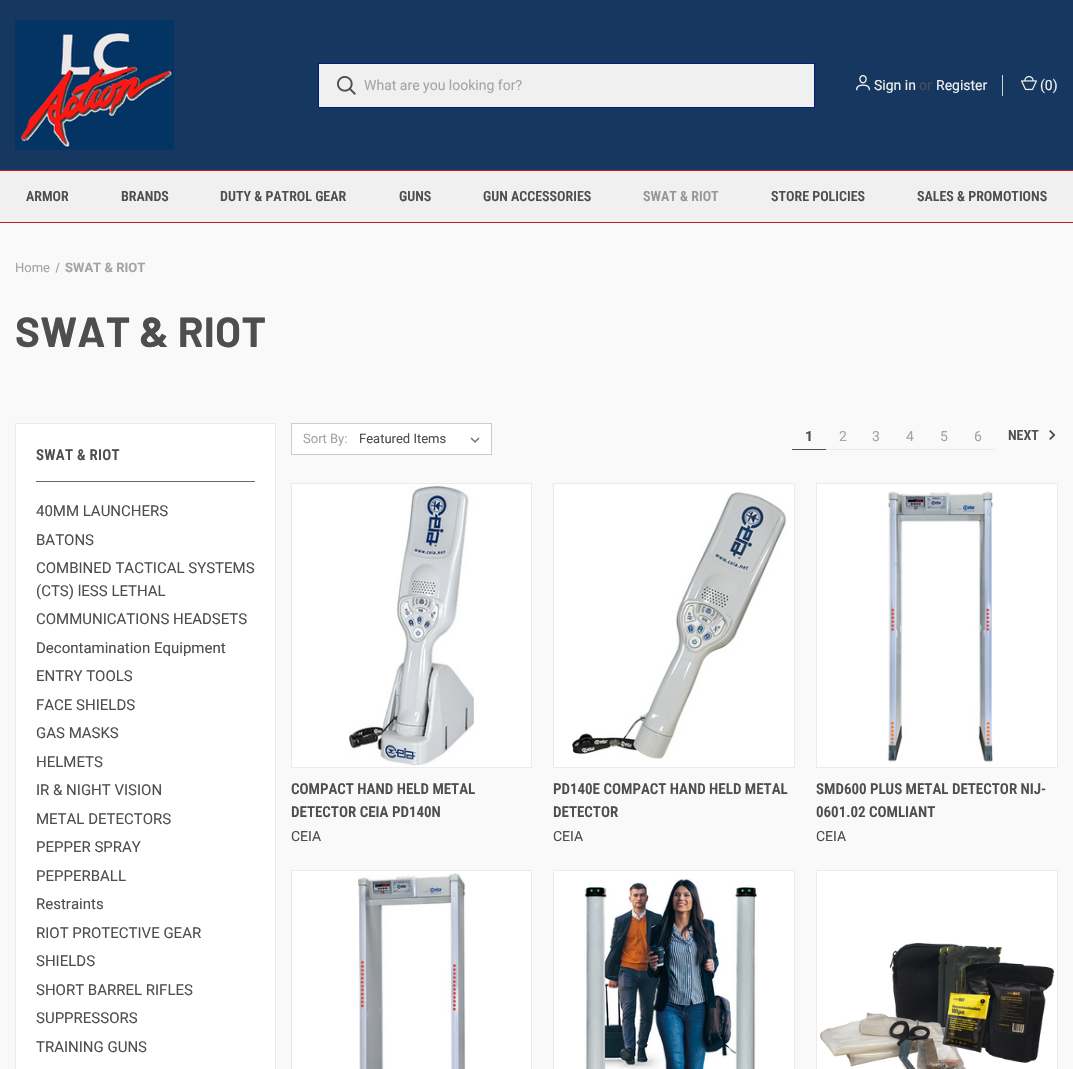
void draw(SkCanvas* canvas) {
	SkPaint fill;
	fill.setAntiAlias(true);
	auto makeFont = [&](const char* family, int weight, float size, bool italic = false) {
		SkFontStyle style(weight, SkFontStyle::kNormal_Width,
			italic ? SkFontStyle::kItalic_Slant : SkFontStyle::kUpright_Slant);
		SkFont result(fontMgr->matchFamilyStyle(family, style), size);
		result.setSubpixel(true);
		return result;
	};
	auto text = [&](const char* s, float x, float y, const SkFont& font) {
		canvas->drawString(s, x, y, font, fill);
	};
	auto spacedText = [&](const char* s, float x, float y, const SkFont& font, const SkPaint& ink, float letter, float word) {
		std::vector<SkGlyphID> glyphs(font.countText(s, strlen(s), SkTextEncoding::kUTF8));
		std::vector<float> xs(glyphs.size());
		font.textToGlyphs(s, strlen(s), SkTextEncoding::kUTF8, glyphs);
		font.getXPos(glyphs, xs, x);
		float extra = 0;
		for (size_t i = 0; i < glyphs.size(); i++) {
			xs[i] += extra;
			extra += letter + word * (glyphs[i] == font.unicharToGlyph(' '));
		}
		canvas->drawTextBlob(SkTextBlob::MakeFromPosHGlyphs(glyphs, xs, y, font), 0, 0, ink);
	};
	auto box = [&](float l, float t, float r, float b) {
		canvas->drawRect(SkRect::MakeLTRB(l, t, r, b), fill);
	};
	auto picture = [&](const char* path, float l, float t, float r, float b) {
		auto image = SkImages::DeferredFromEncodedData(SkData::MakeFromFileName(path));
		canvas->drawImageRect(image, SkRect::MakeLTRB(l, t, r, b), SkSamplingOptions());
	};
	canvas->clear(0xFFF9F9F9);
	fill.setColor(0xFF163760);
	box(0, 0, 1073, 170);
	picture("image0.png", 15, 20, 174, 150);
	fill.setColor(0xFFF0F0F0);
	canvas->drawRect(SkRect::MakeLTRB(318.5f, 63.5f, 814.5f, 107.5f), fill);
	fill.setStyle(SkPaint::kStroke_Style);
	fill.setStrokeWidth(1);
	fill.setColor(0xFF031D7E);
	canvas->drawRect(SkRect::MakeLTRB(318.5f, 63.5f, 814.5f, 107.5f), fill);
	picture("image1.png", 337, 76, 356, 95);
	picture("image2.png", 856, 75, 870, 91);
	fill.setStyle(SkPaint::kFill_Style);
	fill.setColor(0xFFD2D2D2);
	box(1002, 75, 1003, 96);
	picture("image3.png", 1021, 76, 1037, 91);
	fill.setColor(0xFFF0F0F0);
	box(0, 171, 1073, 222);
	fill.setColor(0xFFC41C22);
	box(0, 170, 1073, 171);
	box(0, 222, 1073, 223);
	fill.setColor(0xFFA3A3A3);
	canvas->drawPath(SkPathBuilder().moveTo(58.5f, 262.5f).lineTo(59.5f, 263).lineTo(56.5f, 273).lineTo(55.5f, 272.5f).close().detach(), fill);
	fill.setColor(0xFFFFFFFF);
	canvas->drawRect(SkRect::MakeLTRB(15.5f, 423.5f, 275.5f, 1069.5f), fill);
	fill.setStyle(SkPaint::kStroke_Style);
	fill.setColor(0xFFEBEBEB);
	canvas->drawRect(SkRect::MakeLTRB(15.5f, 423.5f, 275.5f, 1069.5f), fill);
	fill.setStyle(SkPaint::kFill_Style);
	fill.setColor(0xFF696969);
	box(36, 481, 255, 482);
	fill.setColor(0xFFFFFFFF);
	canvas->drawRect(SkRect::MakeLTRB(291.5f, 423.5f, 491.5f, 454.5f), fill);
	fill.setStyle(SkPaint::kStroke_Style);
	fill.setColor(0xFFCCCCCC);
	canvas->drawRect(SkRect::MakeLTRB(291.5f, 423.5f, 491.5f, 454.5f), fill);
	picture("image4.png", 470, 437, 480, 443);
	fill.setStyle(SkPaint::kFill_Style);
	fill.setColor(0xFF4E4E4E);
	box(792, 449, 826, 450);
	fill.setColor(0xFFEBEBEB);
	box(826, 449, 995, 450);
	picture("image5.png", 1049, 430, 1056, 440);
	fill.setColor(0xFFFFFFFF);
	canvas->drawRect(SkRect::MakeLTRB(291.5f, 483.5f, 531.5f, 767.5f), fill);
	fill.setStyle(SkPaint::kStroke_Style);
	fill.setColor(0xFFEBEBEB);
	canvas->drawRect(SkRect::MakeLTRB(291.5f, 483.5f, 531.5f, 767.5f), fill);
	picture("image6.png", 349, 486, 474, 765);
	fill.setStyle(SkPaint::kFill_Style);
	fill.setColor(0xFFFFFFFF);
	canvas->drawRect(SkRect::MakeLTRB(553.5f, 483.5f, 794.5f, 767.5f), fill);
	fill.setStyle(SkPaint::kStroke_Style);
	fill.setColor(0xFFEBEBEB);
	canvas->drawRect(SkRect::MakeLTRB(553.5f, 483.5f, 794.5f, 767.5f), fill);
	picture("image7.png", 572, 492, 787, 759);
	fill.setStyle(SkPaint::kFill_Style);
	fill.setColor(0xFFFFFFFF);
	canvas->drawRect(SkRect::MakeLTRB(816.5f, 483.5f, 1057.5f, 767.5f), fill);
	fill.setStyle(SkPaint::kStroke_Style);
	fill.setColor(0xFFEBEBEB);
	canvas->drawRect(SkRect::MakeLTRB(816.5f, 483.5f, 1057.5f, 767.5f), fill);
	picture("image8.png", 887, 491, 993, 762);
	fill.setStyle(SkPaint::kFill_Style);
	fill.setColor(0xFFFFFFFF);
	canvas->drawRect(SkRect::MakeLTRB(291.5f, 870.5f, 531.5f, 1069.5f), fill);
	fill.setStyle(SkPaint::kStroke_Style);
	fill.setColor(0xFFEBEBEB);
	canvas->drawRect(SkRect::MakeLTRB(291.5f, 870.5f, 531.5f, 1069.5f), fill);
	picture("image9.png", 358, 873, 466, 1069);
	fill.setStyle(SkPaint::kFill_Style);
	fill.setColor(0xFFFFFFFF);
	canvas->drawRect(SkRect::MakeLTRB(553.5f, 870.5f, 794.5f, 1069.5f), fill);
	fill.setStyle(SkPaint::kStroke_Style);
	fill.setColor(0xFFEBEBEB);
	canvas->drawRect(SkRect::MakeLTRB(553.5f, 870.5f, 794.5f, 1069.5f), fill);
	picture("image10.png", 584, 879, 759, 1069);
	fill.setStyle(SkPaint::kFill_Style);
	fill.setColor(0xFFFFFFFF);
	canvas->drawRect(SkRect::MakeLTRB(816.5f, 870.5f, 1057.5f, 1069.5f), fill);
	fill.setStyle(SkPaint::kStroke_Style);
	fill.setColor(0xFFEBEBEB);
	canvas->drawRect(SkRect::MakeLTRB(816.5f, 870.5f, 1057.5f, 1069.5f), fill);
	picture("image11.png", 820, 943, 1054, 1069);
	auto font1 = makeFont("Roboto", 400, 14);
	fill.setStyle(SkPaint::kFill_Style);
	fill.setColor(0xFFA5A5A5);
	text("What are you looking for?", 364, 90, font1);
	fill.setColor(0xFFF0F0F0);
	text("Sign in", 874, 90, font1);
	fill.setColor(0xFF4E4E4E);
	text("or", 919, 90, font1);
	fill.setColor(0xFFF0F0F0);
	text("Register", 936, 90, font1);
	text("(0)", 1040, 90, font1);
	auto font2 = makeFont("Roboto Condensed", 600, 14);
	fill.setColor(0xFF4E4E4E);
	text("ARMOR", 26, 201, font2);
	text("BRANDS", 121, 201, font2);
	text("DUTY & PATROL GEAR", 220, 201, font2);
	text("GUNS", 399, 201, font2);
	text("GUN ACCESSORIES", 483, 201, font2);
	fill.setColor(0xFF969696);
	text("SWAT & RIOT", 643, 201, font2);
	fill.setColor(0xFF4E4E4E);
	text("STORE POLICIES", 771, 201, font2);
	text("SALES & PROMOTIONS", 917, 201, font2);
	auto font3 = makeFont("Roboto", 400, 13);
	fill.setColor(0xFFA5A5A5);
	text("Home", 15, 272, font3);
	auto font4 = makeFont("Roboto", 700, 13);
	text("SWAT & RIOT", 65, 272, font4);
	auto font5 = makeFont("Barlow", 700, 42);
	fill.setColor(0xFF4E4E4E);
	spacedText("SWAT & RIOT", 15, 347, font5, fill, 0.25f, 0);
	auto font6 = makeFont("Roboto Condensed", 600, 15);
	spacedText("SWAT & RIOT", 36, 460, font6, fill, 0.25f, 0);
	auto font7 = makeFont("Roboto", 400, 15);
	text("40MM LAUNCHERS", 36, 516, font7);
	text("BATONS", 36, 545, font7);
	text("COMBINED TACTICAL SYSTEMS", 36, 573, font7);
	text("(CTS) lESS LETHAL", 36, 596, font7);
	text("COMMUNICATIONS HEADSETS", 36, 624, font7);
	text("Decontamination Equipment", 36, 653, font7);
	text("ENTRY TOOLS", 36, 681, font7);
	text("FACE SHIELDS", 36, 710, font7);
	text("GAS MASKS", 36, 738, font7);
	text("HELMETS", 36, 767, font7);
	text("IR & NIGHT VISION", 36, 795, font7);
	text("METAL DETECTORS", 36, 824, font7);
	text("PEPPER SPRAY", 36, 852, font7);
	text("PEPPERBALL", 36, 881, font7);
	text("Restraints", 36, 909, font7);
	text("RIOT PROTECTIVE GEAR", 36, 938, font7);
	text("SHIELDS", 36, 966, font7);
	text("SHORT BARREL RIFLES", 36, 995, font7);
	text("SUPPRESSORS", 36, 1023, font7);
	text("TRAINING GUNS", 36, 1052, font7);
	fill.setColor(0xFFA5A5A5);
	text("Sort By:", 303, 443, font3);
	fill.setColor(0xFF4E4E4E);
	text("Featured Items", 359, 443, font3);
	auto font8 = makeFont("Roboto", 700, 14);
	text("1", 805, 441, font8);
	fill.setColor(0xFFA5A5A5);
	text("2", 839, 441, font1);
	text("3", 872, 441, font1);
	text("4", 906, 441, font1);
	text("5", 940, 441, font1);
	text("6", 974, 441, font1);
	fill.setColor(0xFF4E4E4E);
	text("NEXT", 1008, 440, font2);
	text("COMPACT HAND HELD METAL", 291, 794, font6);
	text("DETECTOR CEIA PD140N", 291, 817, font6);
	text("CEIA", 291, 841, font1);
	text("PD140E COMPACT HAND HELD METAL", 553, 794, font6);
	text("DETECTOR", 553, 817, font6);
	text("CEIA", 553, 841, font1);
	text("SMD600 PLUS METAL DETECTOR NIJ-", 816, 794, font6);
	text("0601.02 COMLIANT", 816, 817, font6);
	text("CEIA", 816, 841, font1);
}
